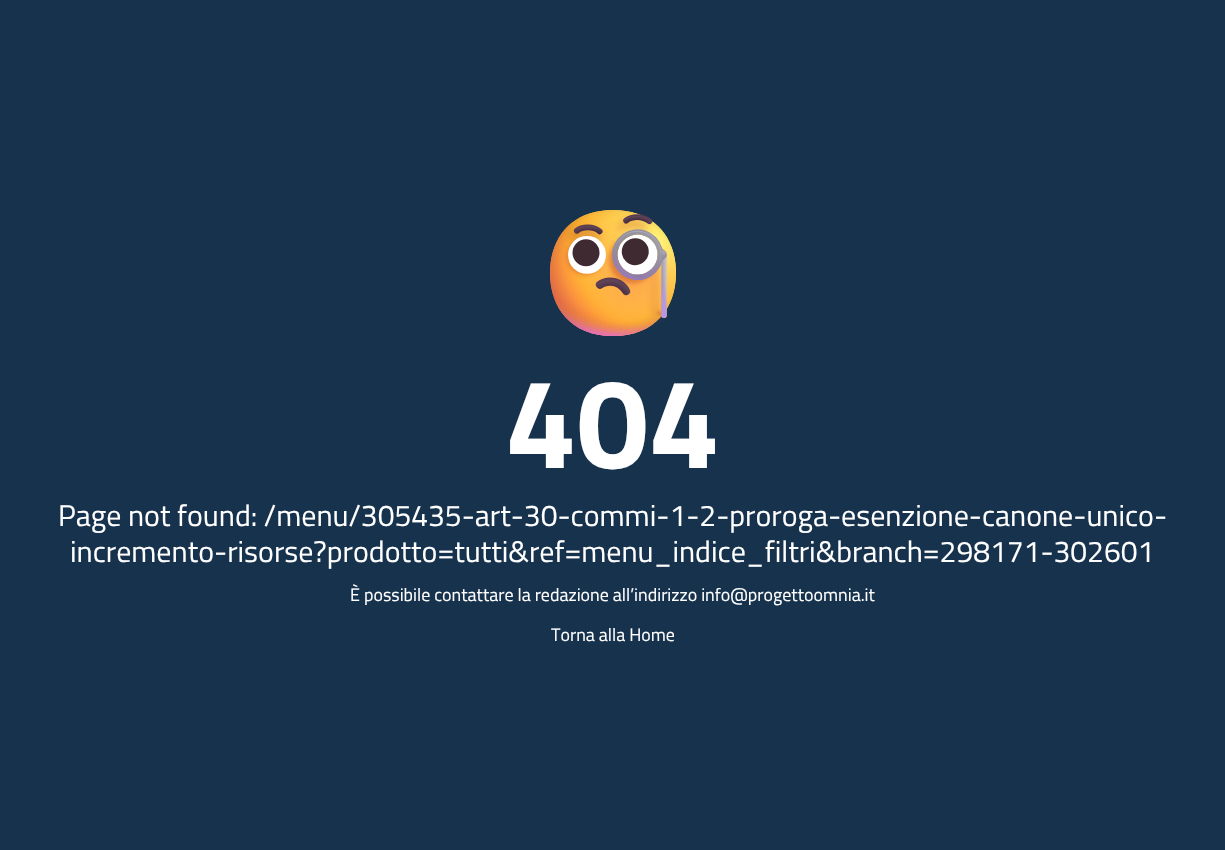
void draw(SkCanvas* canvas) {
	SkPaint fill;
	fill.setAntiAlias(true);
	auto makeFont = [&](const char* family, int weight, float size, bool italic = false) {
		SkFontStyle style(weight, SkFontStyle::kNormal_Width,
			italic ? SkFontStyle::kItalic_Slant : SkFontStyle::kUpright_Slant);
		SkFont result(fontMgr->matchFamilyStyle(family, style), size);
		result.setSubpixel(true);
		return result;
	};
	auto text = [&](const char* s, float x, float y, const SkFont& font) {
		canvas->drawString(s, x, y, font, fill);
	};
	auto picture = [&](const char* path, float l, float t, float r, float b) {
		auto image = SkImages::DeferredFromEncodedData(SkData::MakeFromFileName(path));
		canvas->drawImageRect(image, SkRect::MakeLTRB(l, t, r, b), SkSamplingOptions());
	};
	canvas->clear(0xFF17324D);
	picture("image0.png", 550, 210, 676, 336);
	auto font1 = makeFont("Titillium Web", 700, 128);
	fill.setColor(0xFFFFFFFF);
	text("404", 505, 468, font1);
	auto font2 = makeFont("Titillium Web", 400, 30);
	text("Page not found: /menu/305435-art-30-commi-1-2-proroga-esenzione-canone-unico-", 58, 526, font2);
	text("incremento-risorse?prodotto=tutti&ref=menu_indice_filtri&branch=298171-302601", 70, 562, font2);
	auto font3 = makeFont("Titillium Web", 400, 18);
	text("È possibile contattare la redazione all’indirizzo info@progettoomnia.it", 350, 601, font3);
	text("Torna alla Home", 551, 641, font3);
}
